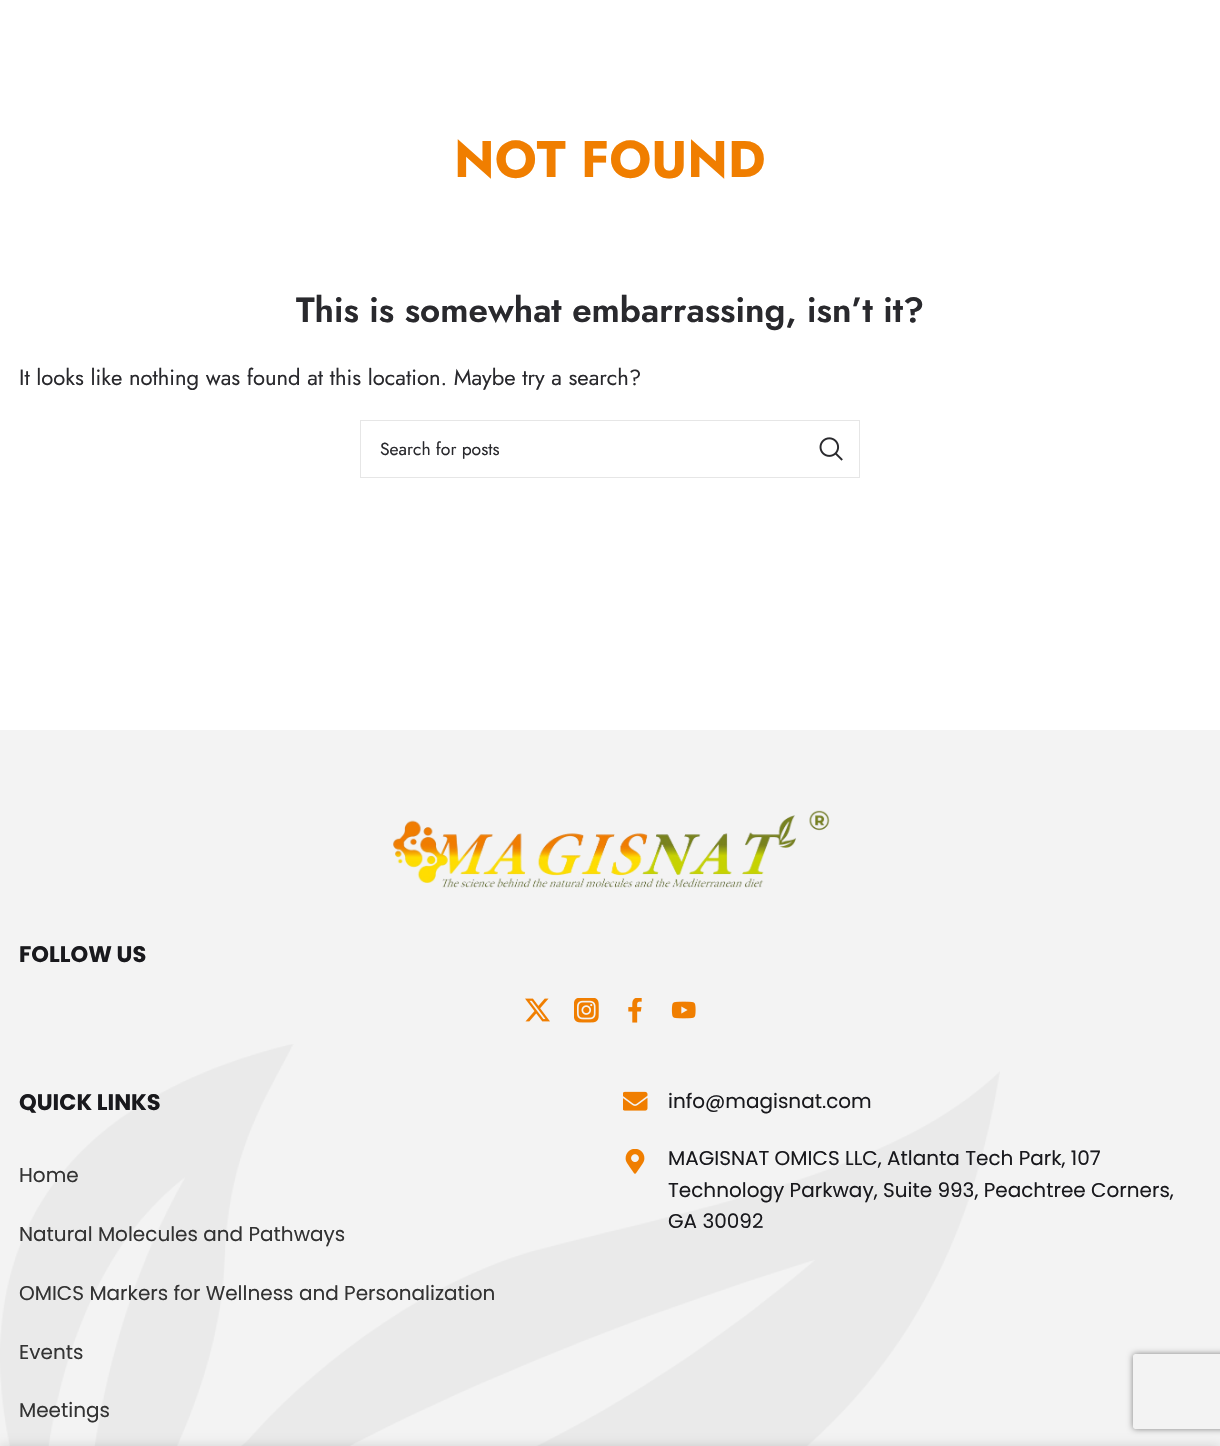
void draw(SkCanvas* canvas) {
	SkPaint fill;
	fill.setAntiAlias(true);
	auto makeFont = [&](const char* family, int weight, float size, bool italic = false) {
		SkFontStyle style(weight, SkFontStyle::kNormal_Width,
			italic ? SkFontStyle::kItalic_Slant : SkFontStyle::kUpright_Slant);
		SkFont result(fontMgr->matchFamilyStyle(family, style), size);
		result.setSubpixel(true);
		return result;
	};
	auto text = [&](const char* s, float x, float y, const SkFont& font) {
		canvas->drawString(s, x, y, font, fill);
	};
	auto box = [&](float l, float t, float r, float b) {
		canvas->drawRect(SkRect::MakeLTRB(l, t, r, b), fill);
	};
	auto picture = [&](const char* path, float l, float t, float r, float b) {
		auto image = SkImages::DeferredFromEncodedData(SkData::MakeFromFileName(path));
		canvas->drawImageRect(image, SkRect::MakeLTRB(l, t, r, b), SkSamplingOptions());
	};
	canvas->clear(0xFFFFFFFF);
	fill.setStyle(SkPaint::kStroke_Style);
	fill.setStrokeWidth(1);
	fill.setColor(0xFFE6E6E6);
	canvas->drawRect(SkRect::MakeLTRB(360.5f, 420.5f, 859.5f, 477.5f), fill);
	picture("image0.png", 819, 437, 843, 461);
	fill.setStyle(SkPaint::kFill_Style);
	fill.setColor(0xFFF3F3F3);
	box(0, 730, 1220, 1446);
	picture("image1.png", 393, 810, 830, 888);
	picture("image2.png", 525, 998, 550, 1022);
	picture("image3.png", 574, 998, 599, 1023);
	picture("image4.png", 628, 998, 642, 1023);
	picture("image5.png", 671, 1001, 696, 1019);
	picture("image8.png", 0, 1044, 1000, 1446);
	picture("image6.png", 623, 1091, 648, 1111);
	picture("image7.png", 625, 1149, 645, 1174);
	canvas->save();
	canvas->clipPath(SkPathBuilder(SkPathFillType::kEvenOdd).moveTo(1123, 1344).lineTo(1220, 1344).lineTo(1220, 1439).lineTo(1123, 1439).close().moveTo(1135.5f, 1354).lineTo(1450.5f, 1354).cubicTo(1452, 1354, 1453, 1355, 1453, 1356.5f).lineTo(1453, 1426.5f).cubicTo(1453, 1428, 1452, 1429, 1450.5f, 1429).lineTo(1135.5f, 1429).cubicTo(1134, 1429, 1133, 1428, 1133, 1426.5f).lineTo(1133, 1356.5f).cubicTo(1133, 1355, 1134, 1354, 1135.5f, 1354).close().detach(), true);
	fill.setColor(0xFF808080);
	fill.setMaskFilter(SkMaskFilter::MakeBlur(kNormal_SkBlurStyle, 3));
	canvas->drawRoundRect(SkRect::MakeLTRB(1133, 1354, 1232, 1429), 2.5f, 2.5f, fill);
	fill.setMaskFilter(nullptr);
	canvas->restore();
	fill.setColor(0x24000000);
	fill.setMaskFilter(SkMaskFilter::MakeBlur(kNormal_SkBlurStyle, 5.5f));
	canvas->drawRect(SkRect::MakeLTRB(0, 1446, 1220, 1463), fill);
	fill.setMaskFilter(nullptr);
	auto font1 = makeFont("Jost", 700, 51.25f);
	fill.setColor(0xFFF07E00);
	text("NOT FOUND", 454, 177, font1);
	auto font2 = makeFont("Jost", 600, 35);
	fill.setColor(0xFF29292D);
	text("This is somewhat embarrassing, isn’t it?", 296, 322, font2);
	auto font3 = makeFont("Jost", 400, 22);
	text("It looks like nothing was found at this location. Maybe try a search?", 19, 385, font3);
	auto font4 = makeFont("Jost", 400, 17.5f);
	text("Search for posts", 380, 455, font4);
	auto font5 = makeFont("Poppins", 700, 22.5f);
	fill.setColor(0xFF19191D);
	text("FOLLOW US", 19, 962, font5);
	text("QUICK LINKS", 19, 1110, font5);
	auto font6 = makeFont("Poppins", 400, 20);
	fill.setColor(0xFF333333);
	text("Home", 19, 1182, font6);
	text("Natural Molecules and Pathways", 19, 1241, font6);
	text("OMICS Markers for Wellness and Personalization", 19, 1300, font6);
	text("Events", 19, 1359, font6);
	text("Meetings", 19, 1417, font6);
	fill.setColor(0xFF19191D);
	text("info@magisnat.com", 668, 1108, font6);
	text("MAGISNAT OMICS LLC, Atlanta Tech Park, 107", 668, 1165, font6);
	text("Technology Parkway, Suite 993, Peachtree Corners,", 668, 1197, font6);
	text("GA 30092", 668, 1228, font6);
}
